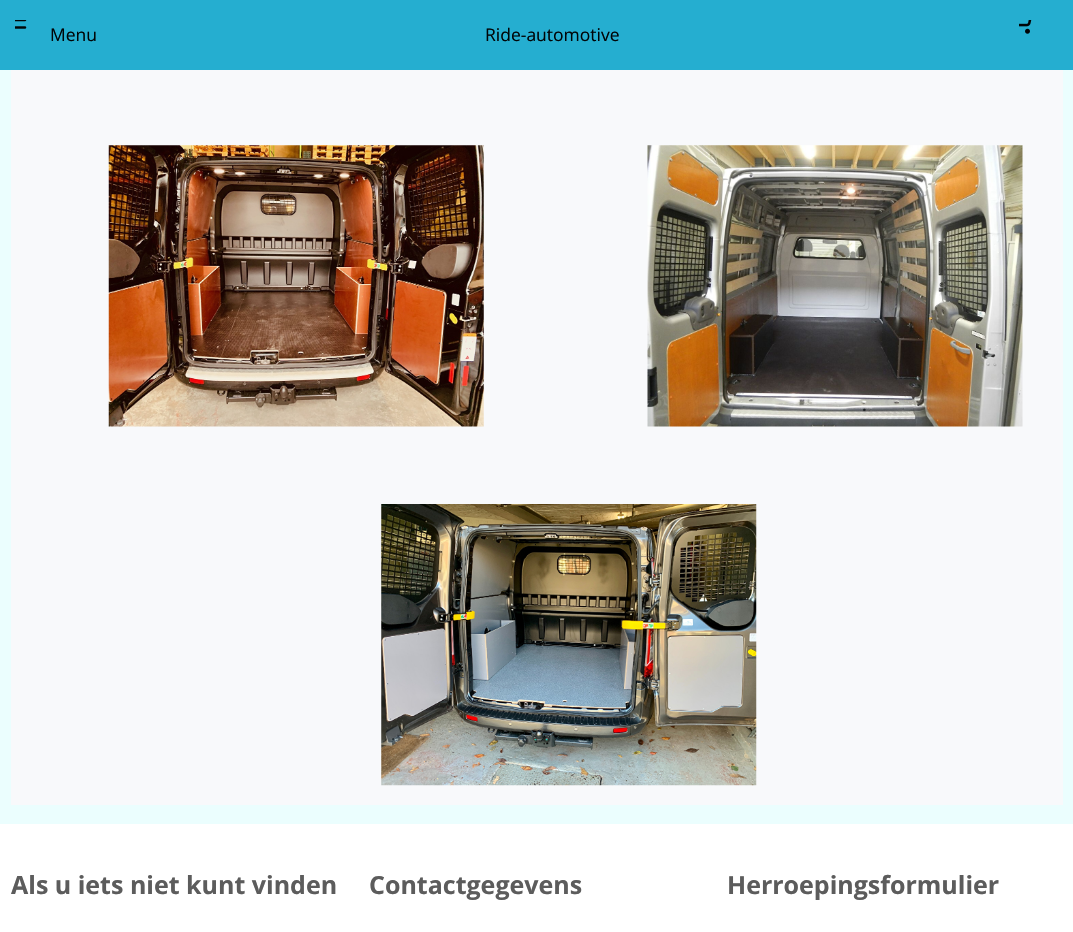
void draw(SkCanvas* canvas) {
	SkPaint fill;
	fill.setAntiAlias(true);
	auto makeFont = [&](const char* family, int weight, float size, bool italic = false) {
		SkFontStyle style(weight, SkFontStyle::kNormal_Width,
			italic ? SkFontStyle::kItalic_Slant : SkFontStyle::kUpright_Slant);
		SkFont result(fontMgr->matchFamilyStyle(family, style), size);
		result.setSubpixel(true);
		return result;
	};
	auto text = [&](const char* s, float x, float y, const SkFont& font) {
		canvas->drawString(s, x, y, font, fill);
	};
	auto box = [&](float l, float t, float r, float b) {
		canvas->drawRect(SkRect::MakeLTRB(l, t, r, b), fill);
	};
	auto picture = [&](const char* path, float l, float t, float r, float b) {
		auto image = SkImages::DeferredFromEncodedData(SkData::MakeFromFileName(path));
		canvas->drawImageRect(image, SkRect::MakeLTRB(l, t, r, b), SkSamplingOptions());
	};
	canvas->clear(0xFFFFFFFF);
	fill.setColor(0xFF25AED0);
	box(0, 0, 1073, 70);
	picture("image0.png", 15, 20, 27, 29);
	picture("image1.png", 1019, 20, 1032, 34);
	fill.setColor(0xFFEBFEFE);
	box(0, 70, 1073, 824);
	fill.setColor(0xFFF8F9FB);
	box(11, 70, 1063, 805);
	picture("image2.png", 108, 145, 484, 427);
	picture("image3.png", 647, 145, 1023, 427);
	picture("image4.png", 381, 504, 757, 786);
	auto font1 = makeFont("Open Sans", 400, 17.5f);
	fill.setColor(0xFF000507);
	text("Menu", 50, 41, font1);
	text("Ride-automotive", 485, 41, font1);
	auto font2 = makeFont("Open Sans", 700, 25);
	fill.setColor(0xFF5C5C5C);
	text("Als u iets niet kunt vinden", 11, 894, font2);
	text("Contactgegevens", 369, 894, font2);
	text("Herroepingsformulier", 727, 894, font2);
}
